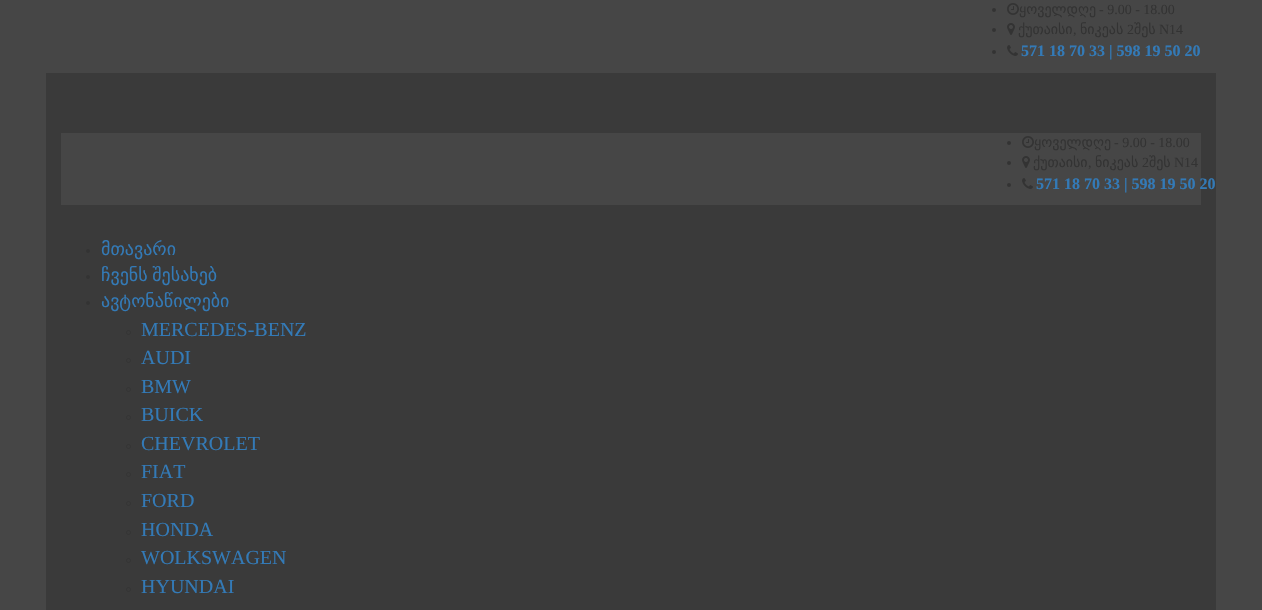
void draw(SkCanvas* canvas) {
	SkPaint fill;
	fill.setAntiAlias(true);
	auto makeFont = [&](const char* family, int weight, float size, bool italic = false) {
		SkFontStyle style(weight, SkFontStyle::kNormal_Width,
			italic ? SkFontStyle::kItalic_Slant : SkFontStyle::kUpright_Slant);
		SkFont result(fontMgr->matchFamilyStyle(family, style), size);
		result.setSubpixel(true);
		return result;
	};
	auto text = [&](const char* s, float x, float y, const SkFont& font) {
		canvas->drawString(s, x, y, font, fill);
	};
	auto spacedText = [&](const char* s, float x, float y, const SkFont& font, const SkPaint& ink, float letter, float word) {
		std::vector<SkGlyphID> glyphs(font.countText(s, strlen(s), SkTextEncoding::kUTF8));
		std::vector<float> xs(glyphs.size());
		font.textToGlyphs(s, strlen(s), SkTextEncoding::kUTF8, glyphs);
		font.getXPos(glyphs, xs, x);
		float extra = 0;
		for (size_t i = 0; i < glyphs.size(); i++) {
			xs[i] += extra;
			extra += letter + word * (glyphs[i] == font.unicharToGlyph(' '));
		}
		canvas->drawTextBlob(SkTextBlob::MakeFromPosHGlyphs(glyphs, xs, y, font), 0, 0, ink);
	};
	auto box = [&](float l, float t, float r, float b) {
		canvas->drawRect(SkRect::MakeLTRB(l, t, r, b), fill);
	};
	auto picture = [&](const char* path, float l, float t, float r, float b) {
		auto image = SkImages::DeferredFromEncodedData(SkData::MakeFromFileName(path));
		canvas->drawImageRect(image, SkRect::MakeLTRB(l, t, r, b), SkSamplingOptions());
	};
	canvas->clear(0xFF464646);
	fill.setColor(0xFF333333);
	canvas->drawCircle(994, 10, 2, fill);
	picture("image0.png", 1007, 3, 1019, 15);
	canvas->drawCircle(994, 30, 2, fill);
	picture("image1.png", 1007, 23, 1015, 35);
	canvas->drawCircle(994, 52, 2, fill);
	picture("image2.png", 1007, 45, 1018, 56);
	fill.setColor(0xFF3A3A3A);
	box(46, 73, 1216, 610);
	fill.setColor(0xFF464646);
	box(61, 133, 1201, 205);
	fill.setColor(0xFF333333);
	canvas->drawCircle(1009, 143, 2, fill);
	picture("image0.png", 1022, 136, 1034, 148);
	canvas->drawCircle(1009, 163, 2, fill);
	picture("image1.png", 1022, 156, 1030, 168);
	canvas->drawCircle(1009, 185, 2, fill);
	picture("image2.png", 1022, 178, 1033, 189);
	canvas->drawCircle(88, 251, 2, fill);
	canvas->drawCircle(88, 277, 2, fill);
	canvas->drawCircle(88, 303, 2, fill);
	fill.setStyle(SkPaint::kStroke_Style);
	fill.setStrokeWidth(1);
	canvas->drawCircle(128.5f, 332.5f, 2, fill);
	canvas->drawCircle(128.5f, 360.5f, 2, fill);
	canvas->drawCircle(128.5f, 389.5f, 2, fill);
	canvas->drawCircle(128.5f, 417.5f, 2, fill);
	canvas->drawCircle(128.5f, 446.5f, 2, fill);
	canvas->drawCircle(128.5f, 474.5f, 2, fill);
	canvas->drawCircle(128.5f, 503.5f, 2, fill);
	canvas->drawCircle(128.5f, 532.5f, 2, fill);
	canvas->drawCircle(128.5f, 560.5f, 2, fill);
	canvas->drawCircle(128.5f, 589.5f, 2, fill);
	auto font1 = makeFont("DejaVu Sans", 400, 14);
	fill.setStyle(SkPaint::kFill_Style);
	text("ყოველდღე", 1019, 14, font1);
	auto font2 = makeFont("Liberation Serif", 400, 14);
	text("- 9.00 - 18.00", 1099, 14, font2);
	text("ქუთაისი", 1018, 34, font1);
	text("ნიკეას", 1080, 34, font1);
	text("2", 1127, 34, font2);
	text("შეს", 1134, 34, font1);
	text("N14", 1159, 34, font2);
	text(",", 1073, 34, font2);
	auto font3 = makeFont("Liberation Serif", 700, 16);
	fill.setColor(0xFF337AB7);
	text("571 18 70 33 | 598 19 50 20", 1021, 56, font3);
	fill.setColor(0xFF333333);
	text("ყოველდღე", 1034, 147, font1);
	text("- 9.00 - 18.00", 1114, 147, font2);
	text("ქუთაისი", 1033, 167, font1);
	text("ნიკეას", 1095, 167, font1);
	text("2", 1142, 167, font2);
	text("შეს", 1149, 167, font1);
	text("N14", 1174, 167, font2);
	text(",", 1088, 167, font2);
	fill.setColor(0xFF337AB7);
	text("571 18 70 33 | 598 19 50 20", 1036, 189, font3);
	auto font4 = makeFont("DejaVu Sans", 400, 18);
	text("მთავარი", 101, 255, font4);
	spacedText("ჩვენს შესახებ", 101, 281, font4, fill, 0, -1);
	text("ავტონაწილები", 101, 307, font4);
	auto font5 = makeFont("Liberation Serif", 400, 20);
	text("MERCEDES-BENZ", 141, 336, font5);
	text("AUDI", 141, 364, font5);
	text("BMW", 141, 393, font5);
	text("BUICK", 141, 421, font5);
	text("CHEVROLET", 141, 450, font5);
	text("FIAT", 141, 478, font5);
	text("FORD", 141, 507, font5);
	text("HONDA", 141, 536, font5);
	text("WOLKSWAGEN", 141, 564, font5);
	text("HYUNDAI", 141, 593, font5);
}
